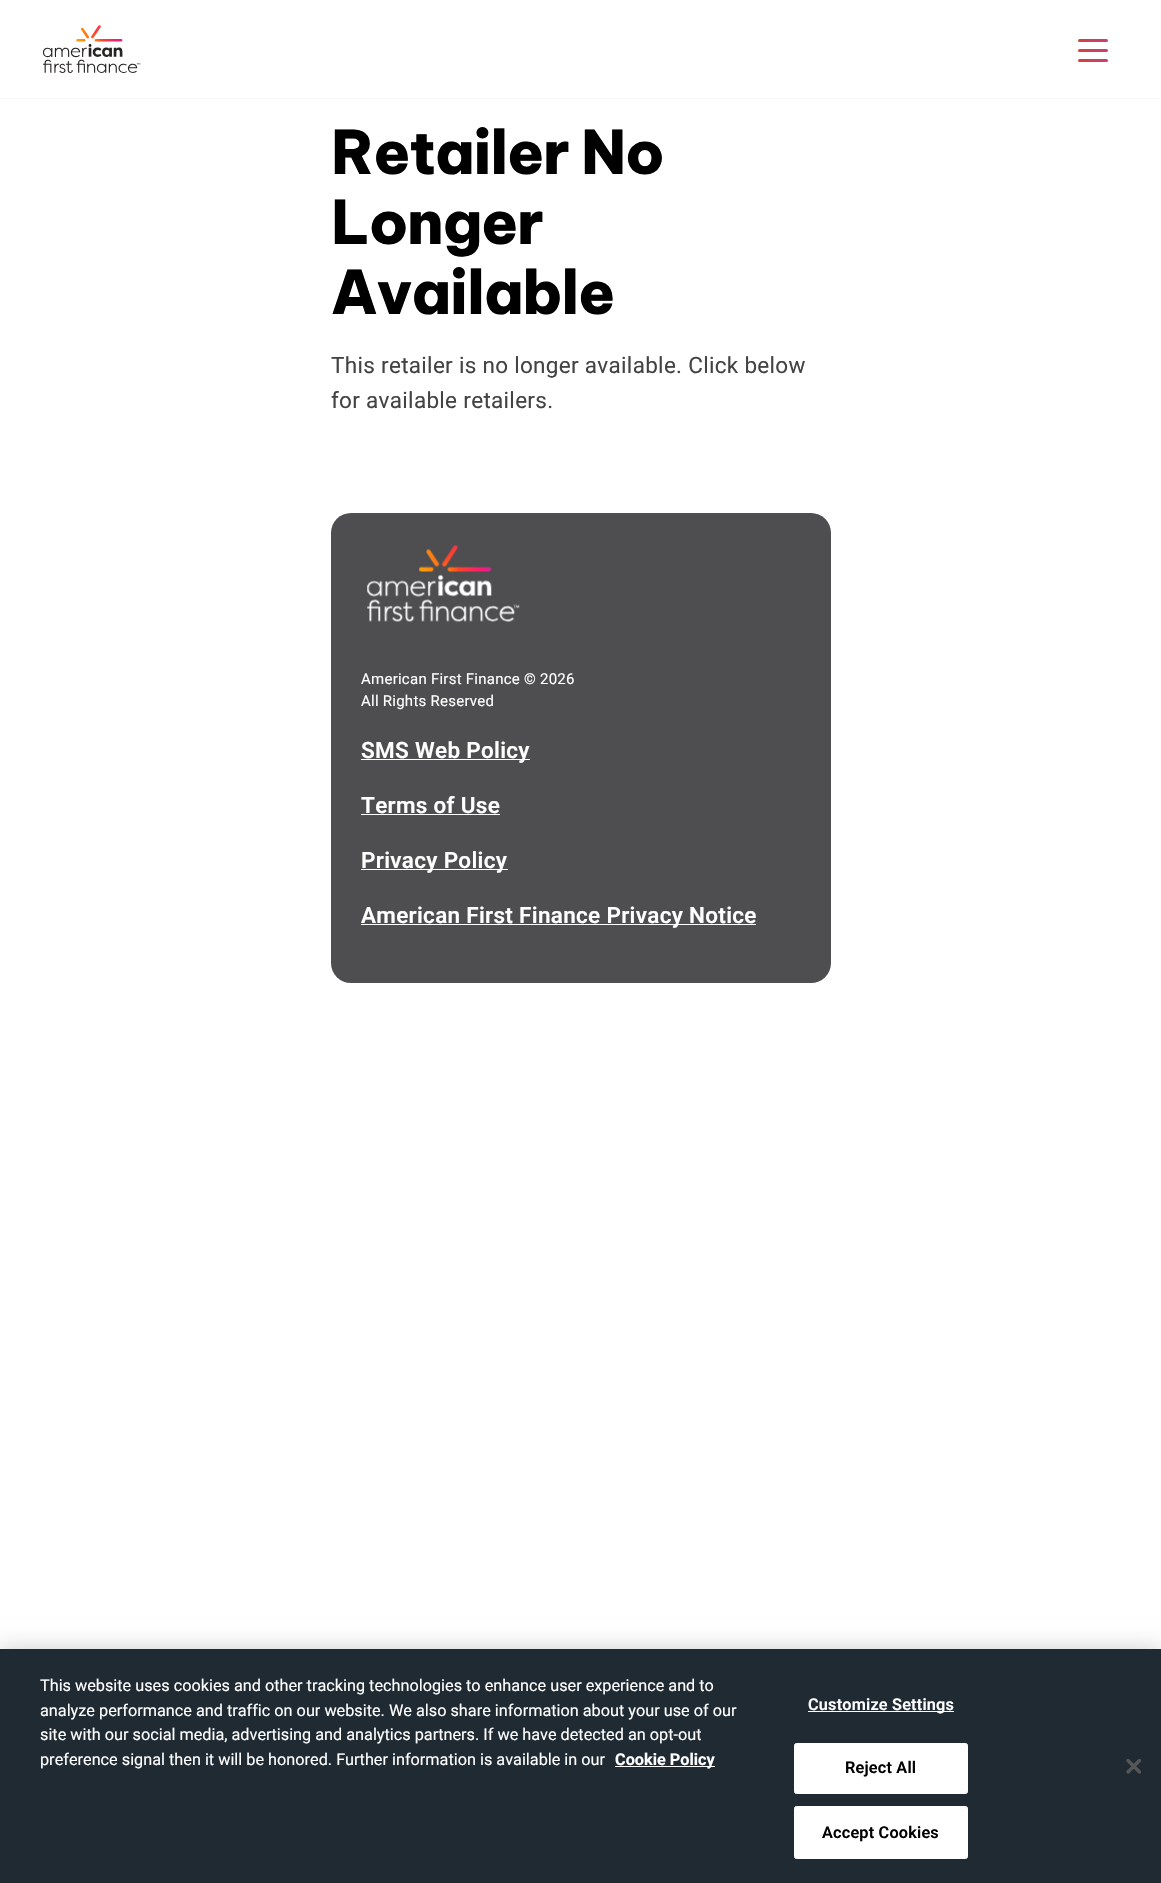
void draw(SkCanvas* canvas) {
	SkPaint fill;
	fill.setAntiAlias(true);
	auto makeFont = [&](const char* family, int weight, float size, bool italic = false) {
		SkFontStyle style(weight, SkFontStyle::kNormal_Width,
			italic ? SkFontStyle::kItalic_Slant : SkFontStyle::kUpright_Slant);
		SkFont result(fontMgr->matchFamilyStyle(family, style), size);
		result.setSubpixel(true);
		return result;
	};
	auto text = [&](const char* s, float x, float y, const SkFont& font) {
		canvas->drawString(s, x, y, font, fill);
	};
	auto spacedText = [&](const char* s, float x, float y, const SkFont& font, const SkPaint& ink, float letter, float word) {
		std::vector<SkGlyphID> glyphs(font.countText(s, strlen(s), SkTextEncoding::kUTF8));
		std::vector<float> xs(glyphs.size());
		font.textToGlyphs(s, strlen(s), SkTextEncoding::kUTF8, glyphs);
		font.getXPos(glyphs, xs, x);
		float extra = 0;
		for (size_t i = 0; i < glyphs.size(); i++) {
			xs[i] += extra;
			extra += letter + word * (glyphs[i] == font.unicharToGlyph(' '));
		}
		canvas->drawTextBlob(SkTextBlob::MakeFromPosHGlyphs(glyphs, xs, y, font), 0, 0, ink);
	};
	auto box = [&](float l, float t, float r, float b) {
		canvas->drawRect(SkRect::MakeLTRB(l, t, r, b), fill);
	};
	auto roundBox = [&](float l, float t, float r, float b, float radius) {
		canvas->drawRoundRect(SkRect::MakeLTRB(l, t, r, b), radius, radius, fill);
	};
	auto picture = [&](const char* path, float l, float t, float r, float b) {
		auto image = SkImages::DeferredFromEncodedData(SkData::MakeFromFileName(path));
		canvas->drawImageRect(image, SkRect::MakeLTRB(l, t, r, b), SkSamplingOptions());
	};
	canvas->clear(0xFFFFFFFF);
	fill.setColor(0xFFF7F7F7);
	box(0, 98, 1161, 99);
	picture("image0.png", 43, 25, 141, 73);
	{
		const SkColor colors[] = {0xFFD34336, 0xFFCA3E7A};
		const float stops[] = {0, 1};
		const SkPoint ends[] = {{1083, 52}, {1102, 68}};
		fill.setShader(SkGradientShader::MakeLinear(ends, colors, stops, 2, SkTileMode::kClamp));
		fill.setAlpha(255);
	}
	roundBox(1078, 59, 1108, 62, 1.5f);
	{
		const SkColor colors[] = {0xFFD34336, 0xFFCA3E7A};
		const float stops[] = {0, 1};
		const SkPoint ends[] = {{1083, 32}, {1102, 48}};
		fill.setShader(SkGradientShader::MakeLinear(ends, colors, stops, 2, SkTileMode::kClamp));
		fill.setAlpha(255);
	}
	roundBox(1078, 39, 1108, 42, 1.5f);
	{
		const SkColor colors[] = {0xFFD34336, 0xFFCA3E7A};
		const float stops[] = {0, 1};
		const SkPoint ends[] = {{1083, 42}, {1102, 58}};
		fill.setShader(SkGradientShader::MakeLinear(ends, colors, stops, 2, SkTileMode::kClamp));
		fill.setAlpha(255);
	}
	roundBox(1078, 49, 1108, 52, 1.5f);
	fill.setShader(nullptr);
	fill.setColor(0xFF4E4E50);
	roundBox(331, 513, 831, 983, 20);
	picture("image1.png", 367, 545, 520, 622);
	fill.setColor(0xFFFFFFFF);
	box(361, 759, 530, 760);
	box(361, 814, 500, 815);
	box(361, 869, 508, 870);
	box(361, 924, 756, 925);
	fill.setColor(0x33000000);
	fill.setMaskFilter(SkMaskFilter::MakeBlur(kNormal_SkBlurStyle, 11));
	canvas->drawRect(SkRect::MakeLTRB(0, 1649, 1161, 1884), fill);
	fill.setMaskFilter(nullptr);
	fill.setColor(0xFF202A33);
	box(0, 1649, 1161, 1883);
	fill.setColor(0xFFFFFFFF);
	box(615, 1766, 715, 1767);
	box(808, 1711, 954, 1712);
	canvas->drawRoundRect(SkRect::MakeLTRB(794.5f, 1743.5f, 967.5f, 1793.5f), 2, 2, fill);
	fill.setStyle(SkPaint::kStroke_Style);
	fill.setStrokeWidth(1);
	canvas->drawRoundRect(SkRect::MakeLTRB(794.5f, 1743.5f, 967.5f, 1793.5f), 2, 2, fill);
	fill.setStyle(SkPaint::kFill_Style);
	canvas->drawRoundRect(SkRect::MakeLTRB(794.5f, 1806.5f, 967.5f, 1858.5f), 2, 2, fill);
	fill.setStyle(SkPaint::kStroke_Style);
	canvas->drawRoundRect(SkRect::MakeLTRB(794.5f, 1806.5f, 967.5f, 1858.5f), 2, 2, fill);
	picture("image2.png", 1126, 1759, 1141, 1774);
	auto font1 = makeFont("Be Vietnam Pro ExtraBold", 800, 60);
	fill.setStyle(SkPaint::kFill_Style);
	fill.setColor(0xFF000000);
	spacedText("Retailer No", 331, 174, font1, fill, -1.25f, 0);
	spacedText("Longer", 331, 244, font1, fill, -1.25f, 0);
	spacedText("Available", 331, 314, font1, fill, -1.25f, 0);
	auto font2 = makeFont("Roboto", 400, 22.5f);
	fill.setColor(0xFF434343);
	spacedText("This retailer is no longer available. Click below", 331, 373, font2, fill, 0.3f, 0);
	spacedText("for available retailers.", 331, 408, font2, fill, 0.3f, 0);
	auto font3 = makeFont("Roboto", 400, 15);
	fill.setColor(0xFFFFFFFF);
	spacedText("American First Finance © 2026", 361, 684, font3, fill, 0.25f, 0);
	spacedText("All Rights Reserved", 361, 706, font3, fill, 0.25f, 0);
	auto font4 = makeFont("Roboto", 600, 22.5f);
	spacedText("SMS Web Policy", 361, 758, font4, fill, 0.3f, 0);
	spacedText("Terms of Use", 361, 813, font4, fill, 0.3f, 0);
	spacedText("Privacy Policy", 361, 868, font4, fill, 0.3f, 0);
	spacedText("American First Finance Privacy Notice", 361, 923, font4, fill, 0.3f, 0);
	auto font5 = makeFont("Roboto", 400, 16.25f);
	text("This website uses cookies and other tracking technologies to enhance user experience and to", 40, 1691, font5);
	text("analyze performance and traffic on our website. We also share information about your use of our", 40, 1716, font5);
	text("site with our social media, advertising and analytics partners. If we have detected an opt-out", 40, 1740, font5);
	text("preference signal then it will be honored. Further information is available in our", 40, 1765, font5);
	auto font6 = makeFont("Roboto", 700, 16.25f);
	text("Cookie Policy", 615, 1765, font6);
	auto font7 = makeFont("Roboto", 600, 16.25f);
	spacedText("Customize Settings", 808, 1710, font7, fill, 0.2f, 0);
	fill.setColor(0xFF000000);
	spacedText("Reject All", 845, 1773, font7, fill, 0.2f, 0);
	spacedText("Accept Cookies", 822, 1838, font7, fill, 0.2f, 0);
}
